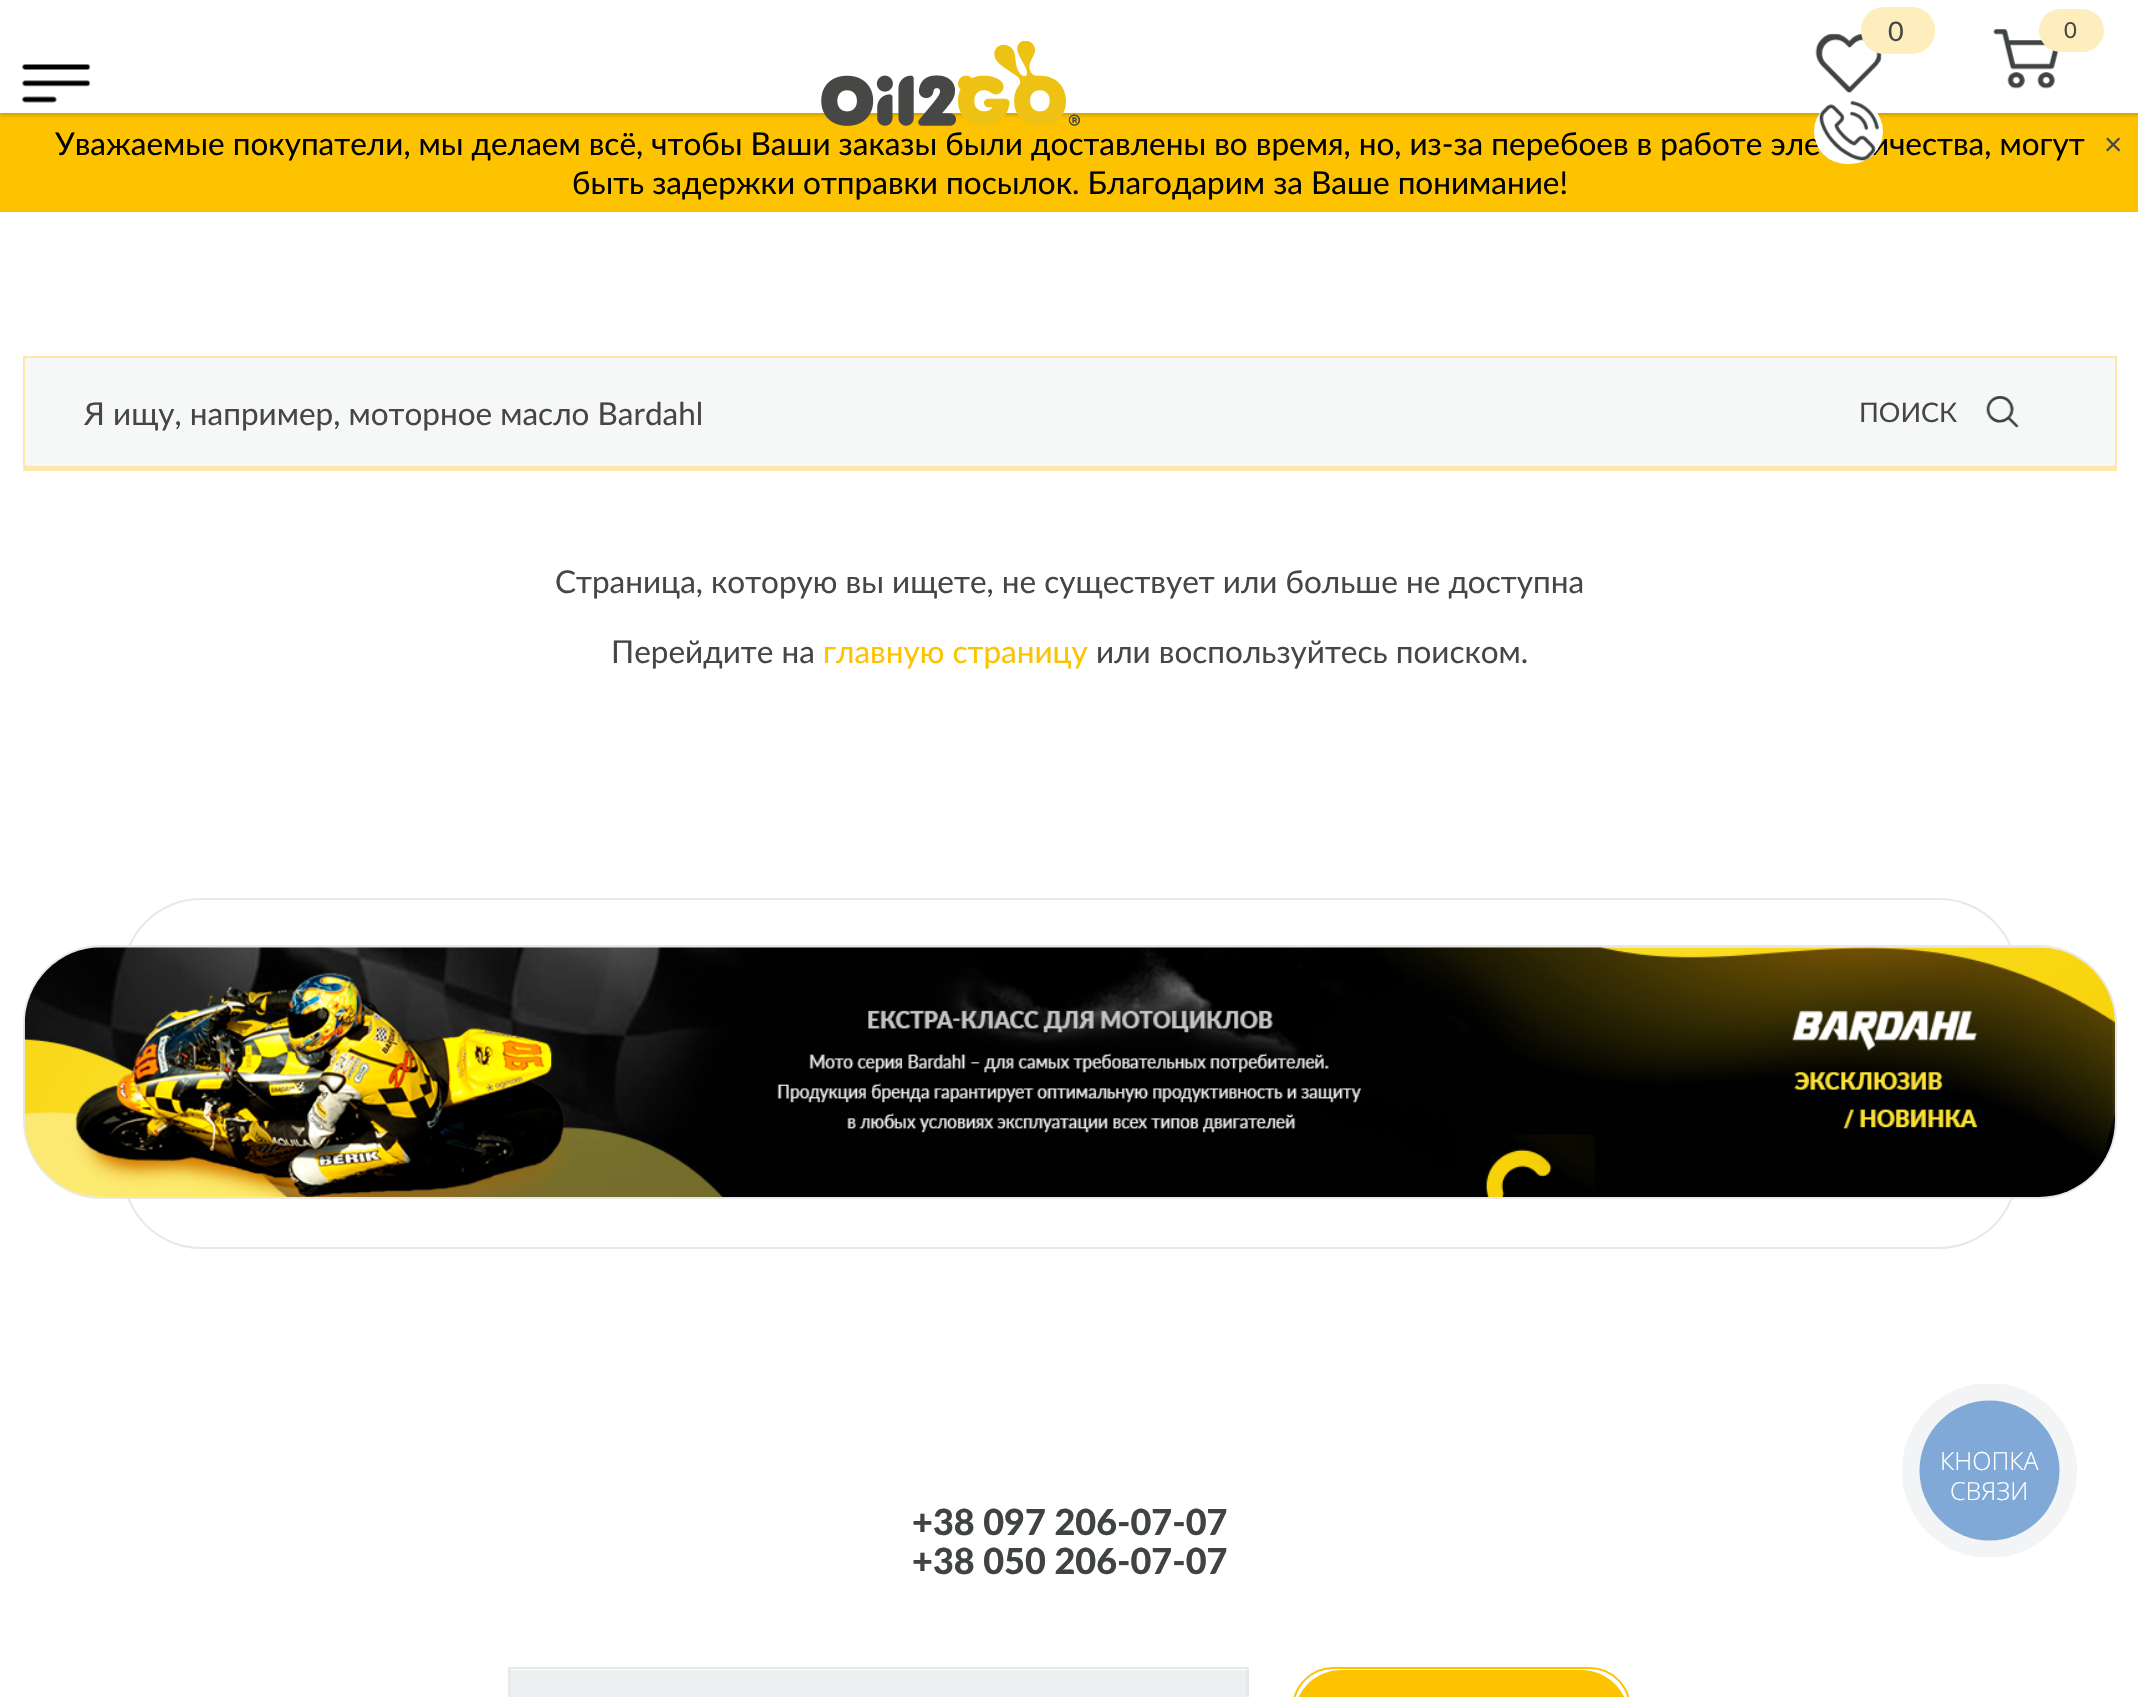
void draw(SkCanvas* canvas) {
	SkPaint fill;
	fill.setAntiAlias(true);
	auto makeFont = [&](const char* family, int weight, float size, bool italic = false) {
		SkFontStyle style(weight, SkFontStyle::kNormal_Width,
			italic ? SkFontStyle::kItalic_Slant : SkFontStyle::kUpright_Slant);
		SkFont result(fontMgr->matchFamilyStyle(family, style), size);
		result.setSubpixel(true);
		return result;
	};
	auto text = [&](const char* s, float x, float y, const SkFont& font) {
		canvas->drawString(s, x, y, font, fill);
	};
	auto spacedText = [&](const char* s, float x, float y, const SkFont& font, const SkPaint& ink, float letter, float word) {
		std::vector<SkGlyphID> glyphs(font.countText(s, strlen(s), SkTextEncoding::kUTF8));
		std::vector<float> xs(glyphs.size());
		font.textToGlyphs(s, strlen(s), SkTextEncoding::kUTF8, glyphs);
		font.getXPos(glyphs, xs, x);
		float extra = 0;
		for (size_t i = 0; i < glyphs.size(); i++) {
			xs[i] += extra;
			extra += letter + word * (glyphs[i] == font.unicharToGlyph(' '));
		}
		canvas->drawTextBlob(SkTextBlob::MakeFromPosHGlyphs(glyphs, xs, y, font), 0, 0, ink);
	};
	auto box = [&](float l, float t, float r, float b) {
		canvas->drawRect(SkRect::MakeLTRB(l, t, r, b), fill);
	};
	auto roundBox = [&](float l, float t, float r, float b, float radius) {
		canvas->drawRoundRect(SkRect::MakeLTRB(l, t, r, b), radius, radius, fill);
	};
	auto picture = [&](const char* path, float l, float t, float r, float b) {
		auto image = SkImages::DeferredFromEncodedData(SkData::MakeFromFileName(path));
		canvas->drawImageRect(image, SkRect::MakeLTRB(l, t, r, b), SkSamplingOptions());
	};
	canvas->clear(0xFFFFFFFF);
	fill.setColor(0xFFFDC300);
	box(0, 113, 2138, 212);
	fill.setColor(0x33000000);
	fill.setMaskFilter(SkMaskFilter::MakeBlur(kNormal_SkBlurStyle, 2));
	canvas->drawRect(SkRect::MakeLTRB(0, 2, 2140, 115), fill);
	fill.setMaskFilter(nullptr);
	fill.setColor(0xFFFFFFFF);
	box(0, 0, 2138, 113);
	picture("image0.png", 1815, 33, 1882, 93);
	fill.setColor(0xFFFEEDBD);
	roundBox(1861, 7, 1935, 54, 23);
	picture("image2.png", 1993, 29, 2059, 89);
	roundBox(2039, 9, 2104, 52, 21.5f);
	picture("image3.png", 22, 64, 91, 103);
	picture("image4.png", 821, 41, 1080, 126);
	fill.setColor(0xFFF6F8F8);
	box(25, 358, 2115, 466);
	fill.setColor(0xFFFFE6AB);
	box(23, 356, 2117, 358);
	box(2115, 356, 2117, 470);
	box(23, 466, 2117, 471);
	box(23, 356, 25, 470);
	picture("image5.png", 1986, 396, 2019, 428);
	fill.setStyle(SkPaint::kStroke_Style);
	fill.setStrokeWidth(2);
	fill.setColor(0xFFE8E8E8);
	canvas->drawRoundRect(SkRect::MakeLTRB(123, 899, 2017, 1248), 78, 78, fill);
	fill.setStyle(SkPaint::kFill_Style);
	fill.setColor(0xFFFFFFFF);
	canvas->drawRoundRect(SkRect::MakeLTRB(24, 946, 2116, 1198), 78, 78, fill);
	fill.setStyle(SkPaint::kStroke_Style);
	fill.setColor(0xFFE8E8E8);
	canvas->drawRoundRect(SkRect::MakeLTRB(24, 946, 2116, 1198), 78, 78, fill);
	picture("image6.png", 24, 947, 2115, 1197);
	fill.setStyle(SkPaint::kFill_Style);
	fill.setColor(0xFFEDF0F1);
	box(511, 1670, 1246, 1697);
	fill.setColor(0xFFE8E8E8);
	box(509, 1667, 1249, 1669);
	canvas->drawPath(SkPathBuilder().moveTo(1249, 1667).lineTo(1249, 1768).lineTo(1246, 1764).lineTo(1246, 1670).close().detach(), fill);
	canvas->drawPath(SkPathBuilder().moveTo(508, 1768).lineTo(508, 1667).lineTo(511, 1670).lineTo(511, 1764).close().detach(), fill);
	fill.setColor(0xFFFDC300);
	canvas->drawPath(SkPathBuilder().moveTo(1342, 1670).lineTo(1581, 1670).cubicTo(1607, 1670, 1629, 1691, 1629, 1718).cubicTo(1629, 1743, 1607, 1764, 1581, 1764).lineTo(1342, 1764).cubicTo(1315, 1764, 1294, 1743, 1294, 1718).cubicTo(1294, 1691, 1315, 1670, 1342, 1670).close().detach(), fill);
	fill.setStyle(SkPaint::kStroke_Style);
	canvas->drawRoundRect(SkRect::MakeLTRB(1293, 1668, 1630, 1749), 50, 50, fill);
	canvas->save();
	canvas->clipRect(SkRect::MakeLTRB(1901, 1384, 2079, 1557));
	fill.setStyle(SkPaint::kFill_Style);
	fill.setColor(0xFFF2F4F5);
	canvas->drawCircle(1989.5f, 1470.5f, 87.5f, fill);
	canvas->restore();
	fill.setColor(0xFF80A9D8);
	canvas->drawCircle(1989.5f, 1470.5f, 70, fill);
	auto font1 = makeFont("Lato", 400, 27);
	fill.setColor(0xFF464644);
	spacedText("0", 1888, 41, font1, fill, 2, 0);
	auto font2 = makeFont("Lato", 400, 22);
	spacedText("0", 2064, 38, font2, fill, 2, 0);
	auto font3 = makeFont("Lato", 400, 31.5f);
	text("Я ищу, например, моторное масло Bardahl", 84, 425, font3);
	text("ПОИСК", 1859, 422, font1);
	text("Страница, которую вы ищете, не существует или больше не доступна", 555, 593, font3);
	text("Перейдите на", 611, 663, font3);
	fill.setColor(0xFFFDC300);
	text("главную страницу", 823, 663, font3);
	fill.setColor(0xFF464644);
	text("или воспользуйтесь поиском.", 1096, 663, font3);
	auto font4 = makeFont("Lato", 900, 36);
	fill.setColor(0xFF3F4342);
	text("+38 097 206-07-07", 912, 1535, font4);
	text("+38 050 206-07-07", 912, 1574, font4);
	fill.setColor(0xFF000000);
	text("Уважаемые покупатели, мы делаем всё, чтобы Ваши заказы были доставлены во время, но, из-за перебоев в работе эле", 55, 155, font3);
	text("ичества, могут", 1871, 155, font3);
	fill.setColor(0xFFFFFFFF);
	roundBox(1814, 99, 1883, 164, 32.5f);
	picture("image1.png", 1819, 101, 1879, 161);
	fill.setColor(0xFF464644);
	text("×", 2104, 155, font3);
	fill.setColor(0xFF000000);
	text("быть задержки отправки посылок. Благодарим за Ваше понимание!", 572, 194, font3);
	auto font5 = makeFont("Open Sans", 300, 25);
	fill.setColor(0xFFFFFFFF);
	text("КНОПКА", 1940, 1470, font5);
	text("СВЯЗИ", 1950, 1500, font5);
}
